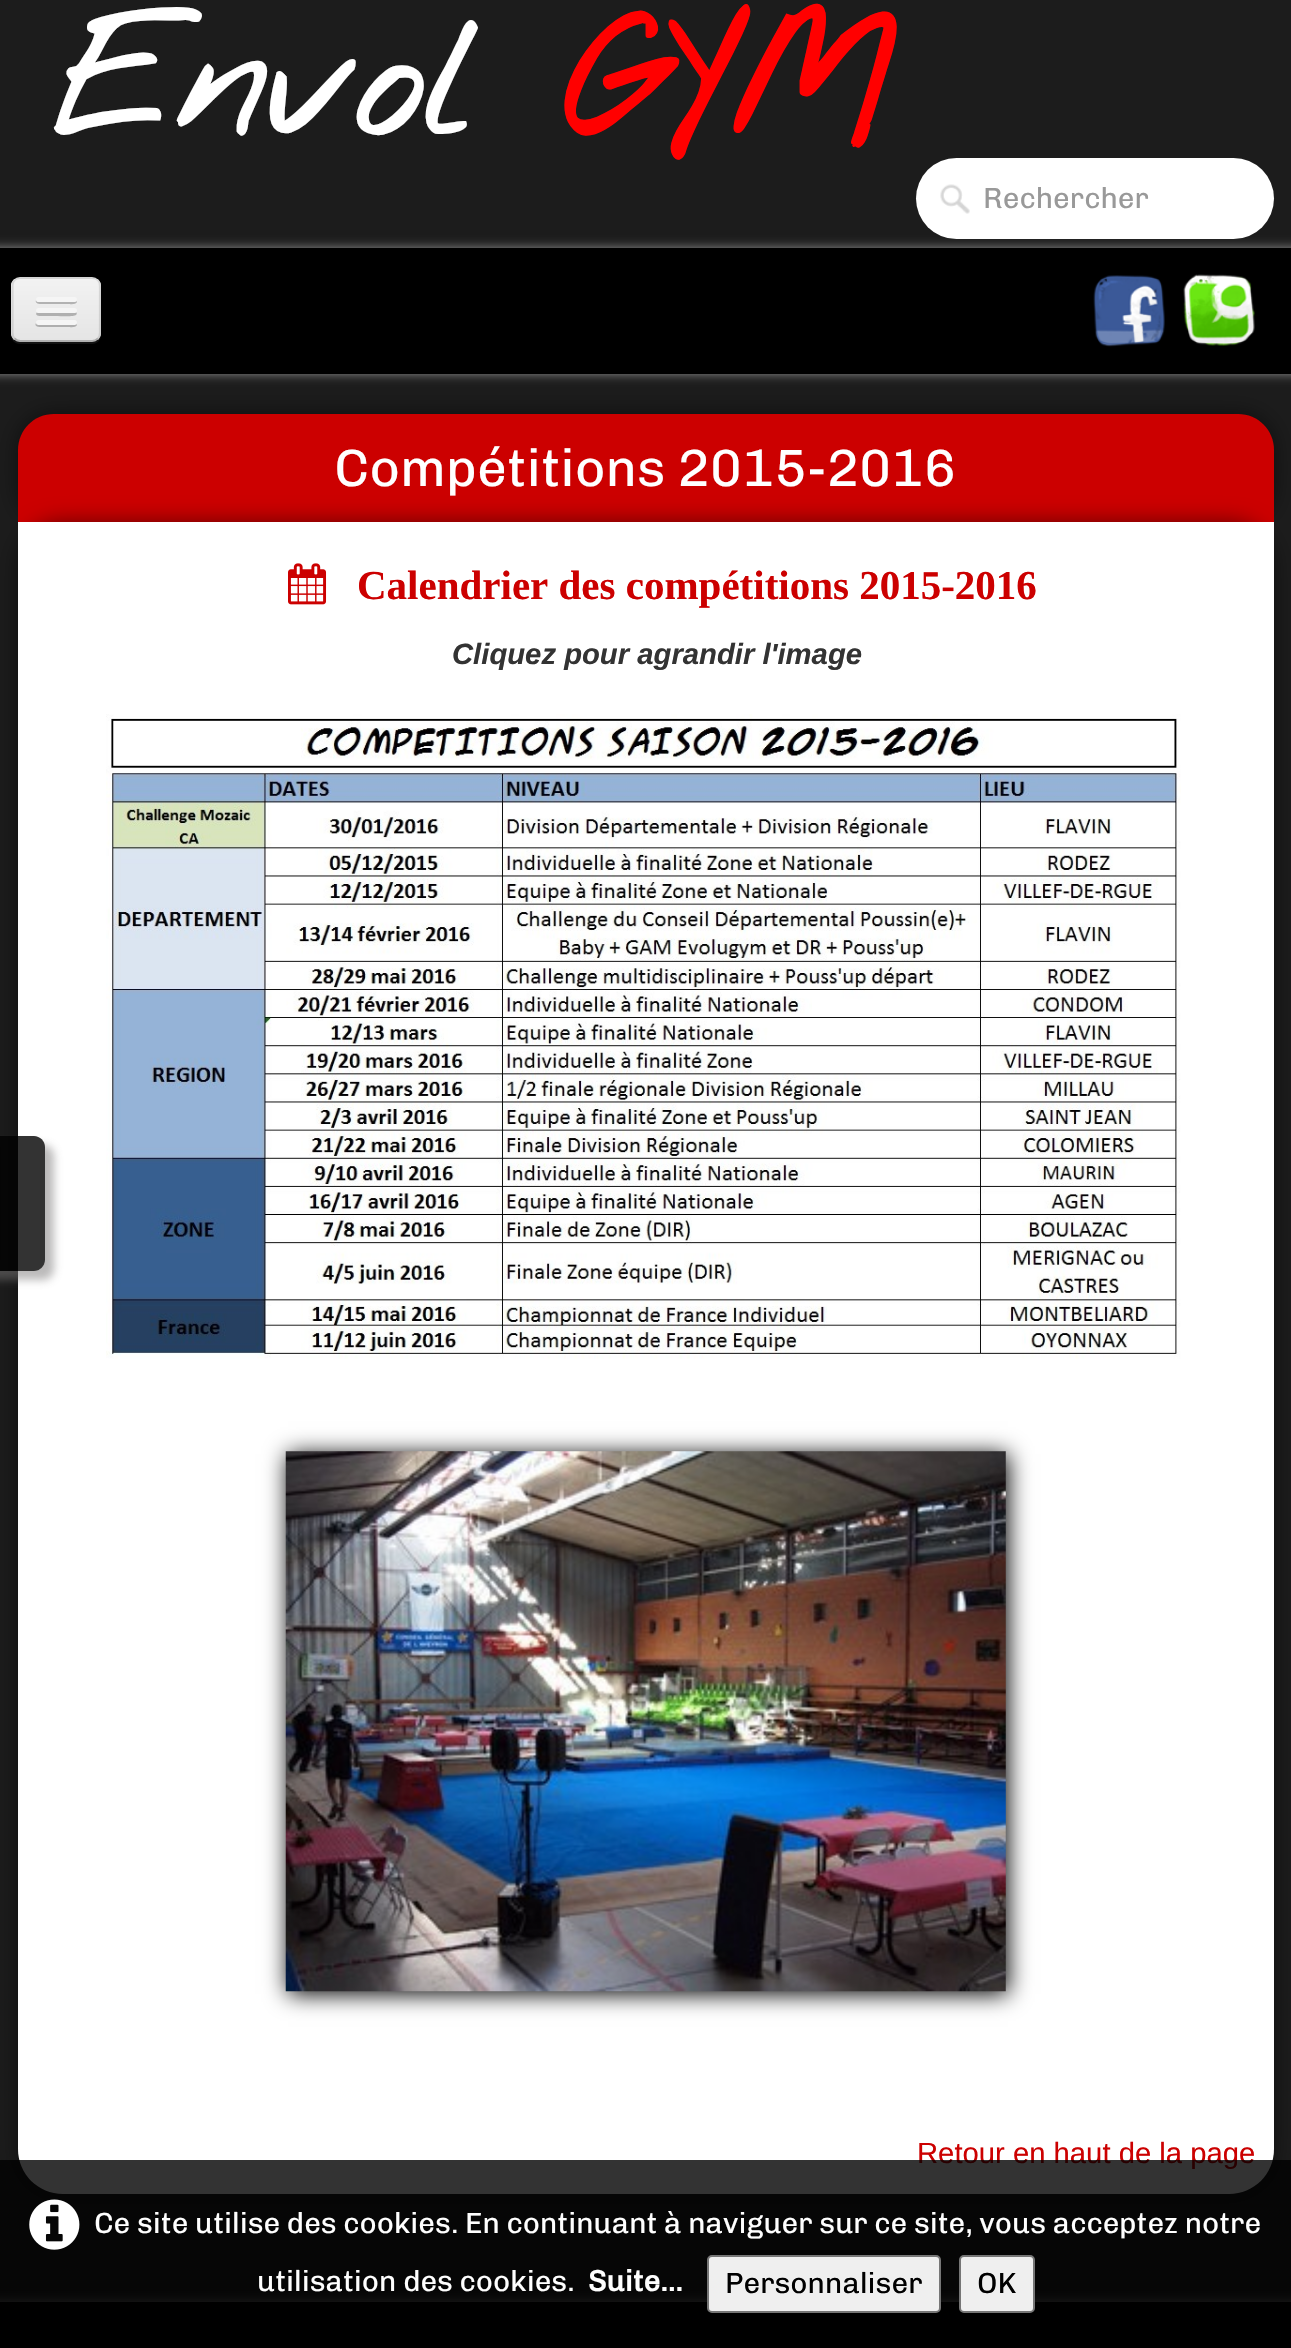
void draw(SkCanvas* canvas) {
	SkPaint fill;
	fill.setAntiAlias(true);
	auto makeFont = [&](const char* family, int weight, float size, bool italic = false) {
		SkFontStyle style(weight, SkFontStyle::kNormal_Width,
			italic ? SkFontStyle::kItalic_Slant : SkFontStyle::kUpright_Slant);
		SkFont result(fontMgr->matchFamilyStyle(family, style), size);
		result.setSubpixel(true);
		return result;
	};
	auto text = [&](const char* s, float x, float y, const SkFont& font) {
		canvas->drawString(s, x, y, font, fill);
	};
	auto box = [&](float l, float t, float r, float b) {
		canvas->drawRect(SkRect::MakeLTRB(l, t, r, b), fill);
	};
	auto roundBox = [&](float l, float t, float r, float b, float radius) {
		canvas->drawRoundRect(SkRect::MakeLTRB(l, t, r, b), radius, radius, fill);
	};
	auto picture = [&](const char* path, float l, float t, float r, float b) {
		auto image = SkImages::DeferredFromEncodedData(SkData::MakeFromFileName(path));
		canvas->drawImageRect(image, SkRect::MakeLTRB(l, t, r, b), SkSamplingOptions());
	};
	canvas->clear(0xFF1C1C1C);
	fill.setColor(0x80000000);
	fill.setMaskFilter(SkMaskFilter::MakeBlur(kNormal_SkBlurStyle, 11));
	canvas->drawRoundRect(SkRect::MakeLTRB(18, 414, 1274, 522), 36, 36, fill);
	fill.setMaskFilter(nullptr);
	fill.setColor(0xFFCC0000);
	canvas->drawPath(SkPathBuilder().moveTo(54, 414).lineTo(1238, 414).cubicTo(1258, 414, 1274, 430, 1274, 450).lineTo(1274, 522).lineTo(18, 522).lineTo(18, 450).cubicTo(18, 430, 34, 414, 54, 414).close().detach(), fill);
	fill.setColor(0x80000000);
	fill.setMaskFilter(SkMaskFilter::MakeBlur(kNormal_SkBlurStyle, 11));
	canvas->drawRoundRect(SkRect::MakeLTRB(18, 522, 1274, 2194), 45, 45, fill);
	fill.setMaskFilter(nullptr);
	fill.setColor(0xFFFFFFFF);
	canvas->drawPath(SkPathBuilder().moveTo(18, 522).lineTo(1274, 522).lineTo(1274, 2149).cubicTo(1274, 2174, 1254, 2194, 1229, 2194).lineTo(63, 2194).cubicTo(38, 2194, 18, 2174, 18, 2149).close().detach(), fill);
	canvas->save();
	canvas->clipPath(SkPathBuilder(SkPathFillType::kEvenOdd).moveTo(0, 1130).lineTo(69, 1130).lineTo(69, 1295).lineTo(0, 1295).close().moveTo(-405, 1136).lineTo(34, 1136).cubicTo(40, 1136, 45, 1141, 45, 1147).lineTo(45, 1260).cubicTo(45, 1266, 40, 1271, 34, 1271).lineTo(-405, 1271).close().detach(), true);
	fill.setColor(0x82797777);
	fill.setMaskFilter(SkMaskFilter::MakeBlur(kNormal_SkBlurStyle, 4.5f));
	canvas->drawRoundRect(SkRect::MakeLTRB(-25, 1145, 54, 1280), 11, 11, fill);
	fill.setMaskFilter(nullptr);
	canvas->restore();
	fill.setColor(0xCC000000);
	canvas->drawPath(SkPathBuilder().moveTo(-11, 1136).lineTo(34, 1136).cubicTo(40, 1136, 45, 1141, 45, 1147).lineTo(45, 1260).cubicTo(45, 1266, 40, 1271, 34, 1271).lineTo(-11, 1271).close().detach(), fill);
	fill.setColor(0xFFFFFFFF);
	roundBox(916, 158, 1274, 239, 40.5f);
	picture("image0.png", 940, 184, 970, 214);
	fill.setColor(0x80FFFFFF);
	fill.setMaskFilter(SkMaskFilter::MakeBlur(kNormal_SkBlurStyle, 5.5f));
	canvas->drawRoundRect(SkRect::MakeLTRB(-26, 248, 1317, 374), 9, 9, fill);
	fill.setMaskFilter(nullptr);
	fill.setColor(0xFF000000);
	box(0, 248, 1291, 374);
	fill.setColor(0xFF131313);
	canvas->drawPath(SkPathBuilder().moveTo(11, 286).lineTo(11, 335).cubicTo(11, 340, 15, 344, 20, 344).lineTo(92, 344).cubicTo(97, 344, 101, 340, 101, 335).cubicTo(100, 339, 96, 342, 92, 342).lineTo(20, 342).cubicTo(15, 342, 11, 338, 11, 333).close().detach(), fill);
	fill.setColor(0xFFEDEDED);
	roundBox(11, 277, 101, 342, 9);
	canvas->save();
	canvas->clipPath(SkPathBuilder().moveTo(20, 277).lineTo(92, 277).cubicTo(97, 277, 101, 281, 101, 286).lineTo(101, 333).cubicTo(101, 338, 97, 342, 92, 342).lineTo(20, 342).cubicTo(15, 342, 11, 338, 11, 333).lineTo(11, 286).cubicTo(11, 281, 15, 277, 20, 277).close().detach(), true);
	{
		const SkColor colors[] = {0xFFF2F2F2, 0xFFE5E5E5};
		const float stops[] = {0, 1};
		const SkPoint ends[] = {{56, 279}, {56, 340}};
		fill.setShader(SkGradientShader::MakeLinear(ends, colors, stops, 2, SkTileMode::kClamp));
		fill.setAlpha(255);
	}
	box(11, 279, 101, 340);
	canvas->restore();
	fill.setStyle(SkPaint::kStroke_Style);
	fill.setStrokeWidth(2.2f);
	fill.setShader(nullptr);
	fill.setColor(0x40000000);
	canvas->drawPath(SkPathBuilder().moveTo(98, 338.5f).cubicTo(96.5f, 340, 94.5f, 341, 92, 341).lineTo(20.5f, 341).cubicTo(18, 341, 16, 340, 14.5f, 338.5f).detach(), fill);
	fill.setColor(0x1A000000);
	canvas->drawPath(SkPathBuilder().moveTo(14.5f, 338.5f).cubicTo(13, 337, 12.5f, 335, 12.5f, 333).lineTo(12.5f, 286).cubicTo(12.5f, 283.5f, 13, 281.5f, 14.5f, 280).cubicTo(16, 278.5f, 18, 278, 20, 278).lineTo(92, 278).cubicTo(94.5f, 278, 96.5f, 278.5f, 98, 280).cubicTo(99.5f, 281.5f, 100, 283.5f, 100, 286).lineTo(100, 333).cubicTo(100, 335, 99.5f, 337, 98, 338.5f).detach(), fill);
	fill.setStyle(SkPaint::kFill_Style);
	fill.setColor(0xFFB2B2B2);
	canvas->drawPath(SkPathBuilder().moveTo(36, 300).cubicTo(34, 305, 44, 304, 44, 304).lineTo(68, 304).cubicTo(70, 304, 76, 305, 77, 302).lineTo(76, 300).cubicTo(76, 301, 75, 302, 74, 302).lineTo(38, 302).cubicTo(37, 302, 37, 301, 36, 300).close().detach(), fill);
	fill.setColor(0xFFF5F5F5);
	roundBox(36, 297, 77, 302, 2.5f);
	fill.setColor(0xFFB0B0B0);
	canvas->drawPath(SkPathBuilder().moveTo(37, 312).cubicTo(33, 317, 44, 316, 44, 316).lineTo(56, 316).cubicTo(60, 316, 74, 317, 76, 315).cubicTo(77, 314, 77, 313, 76, 312).lineTo(75, 313).lineTo(38, 313).close().detach(), fill);
	fill.setColor(0xFFF5F5F5);
	roundBox(36, 308, 77, 313, 2.5f);
	fill.setColor(0xFFAEAEAE);
	canvas->drawPath(SkPathBuilder().moveTo(36, 323).cubicTo(33, 328, 44, 327, 44, 327).lineTo(68, 327).cubicTo(70, 327, 76, 328, 77, 325).lineTo(76, 323).lineTo(75, 324).lineTo(38, 324).close().detach(), fill);
	fill.setColor(0xFFF5F5F5);
	roundBox(36, 320, 77, 325, 2.5f);
	picture("image1.png", 1093, 275, 1165, 347);
	picture("image2.png", 1183, 274, 1255, 346);
	picture("image3.png", 288, 563, 327, 605);
	picture("image4.png", 106, 714, 1181, 1359);
	fill.setColor(0xFF000000);
	fill.setMaskFilter(SkMaskFilter::MakeBlur(kNormal_SkBlurStyle, 11));
	canvas->drawRect(SkRect::MakeLTRB(288, 1454, 1008, 1994), fill);
	fill.setMaskFilter(nullptr);
	picture("image5.png", 285, 1451, 1006, 1992);
	fill.setColor(0x80FFFFFF);
	fill.setMaskFilter(SkMaskFilter::MakeBlur(kNormal_SkBlurStyle, 5.5f));
	canvas->drawRect(SkRect::MakeLTRB(-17, 2302, 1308, 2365), fill);
	fill.setMaskFilter(nullptr);
	fill.setColor(0xFF000000);
	box(0, 2302, 1291, 2348);
	auto font1 = makeFont("Nothing You Could Do", 700, 166.5f);
	fill.setColor(0xFFFFFFFF);
	text("Envol", 52, 135, font1);
	fill.setColor(0xFFFF0000);
	text("GYM", 564, 135, font1);
	auto font2 = makeFont("Chivo", 500, 29.25f);
	fill.setColor(0xFF999999);
	text("Rechercher", 983, 208, font2);
	auto font3 = makeFont("Chivo", 500, 52.6f);
	fill.setColor(0xFFFFFFFF);
	text("Compétitions 2015-2016", 334, 486, font3);
	auto font4 = makeFont("Liberation Serif", 700, 41);
	fill.setColor(0xFFCC0000);
	text("Calendrier des compétitions 2015-2016", 357, 599, font4);
	auto font5 = makeFont("Liberation Sans", 700, 29.25f, true);
	fill.setColor(0xFF333333);
	text("Cliquez pour agrandir l'image", 452, 664, font5);
	auto font6 = makeFont("Liberation Sans", 400, 29.25f);
	fill.setColor(0xFFCC0000);
	text("Retour en haut de la page", 917, 2163, font6);
	fill.setColor(0xCC000000);
	box(0, 2160, 1291, 2302);
	picture("image6.png", 29, 2199, 80, 2250);
	fill.setColor(0xFFFFFFFF);
	text("Ce site utilise des cookies. En continuant à naviguer sur ce site, vous acceptez notre", 94, 2233, font2);
	text("utilisation des cookies.", 257, 2291, font2);
	auto font7 = makeFont("Chivo", 700, 29.25f);
	text("Suite...", 588, 2291, font7);
	fill.setColor(0xFFEFEFEF);
	canvas->drawRoundRect(SkRect::MakeLTRB(708, 2256, 940, 2312), 4, 4, fill);
	fill.setStyle(SkPaint::kStroke_Style);
	fill.setStrokeWidth(2);
	fill.setColor(0xFF767676);
	canvas->drawRoundRect(SkRect::MakeLTRB(708, 2256, 940, 2312), 4, 4, fill);
	fill.setStyle(SkPaint::kFill_Style);
	fill.setColor(0xFF000000);
	text("Personnaliser", 725, 2293, font2);
	fill.setColor(0xFFEFEFEF);
	canvas->drawRoundRect(SkRect::MakeLTRB(960, 2256, 1034, 2312), 4, 4, fill);
	fill.setStyle(SkPaint::kStroke_Style);
	fill.setColor(0xFF767676);
	canvas->drawRoundRect(SkRect::MakeLTRB(960, 2256, 1034, 2312), 4, 4, fill);
	fill.setStyle(SkPaint::kFill_Style);
	fill.setColor(0xFF000000);
	text("OK", 977, 2293, font2);
}
